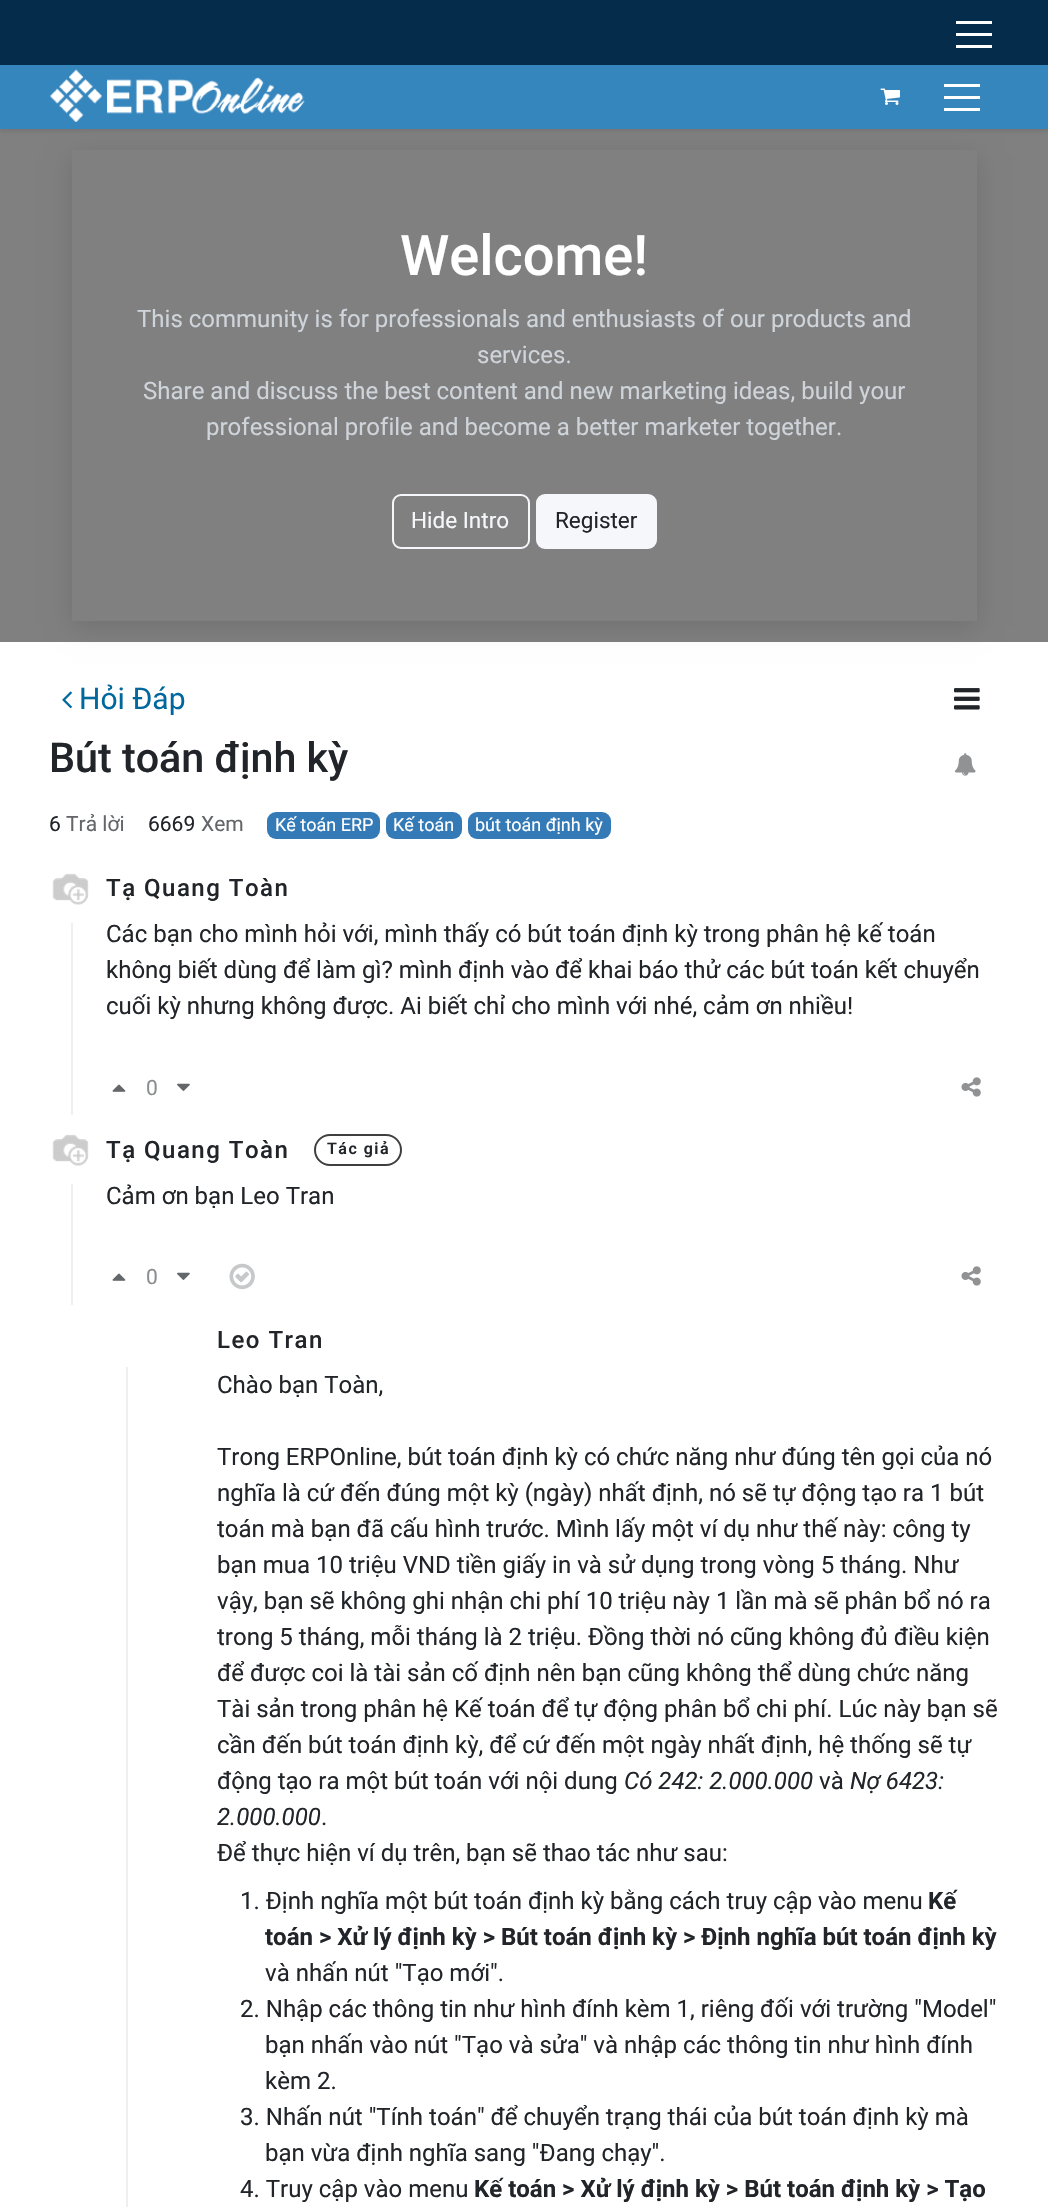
void draw(SkCanvas* canvas) {
	SkPaint fill;
	fill.setAntiAlias(true);
	auto makeFont = [&](const char* family, int weight, float size, bool italic = false) {
		SkFontStyle style(weight, SkFontStyle::kNormal_Width,
			italic ? SkFontStyle::kItalic_Slant : SkFontStyle::kUpright_Slant);
		SkFont result(fontMgr->matchFamilyStyle(family, style), size);
		result.setSubpixel(true);
		return result;
	};
	auto text = [&](const char* s, float x, float y, const SkFont& font) {
		canvas->drawString(s, x, y, font, fill);
	};
	auto spacedText = [&](const char* s, float x, float y, const SkFont& font, const SkPaint& ink, float letter, float word) {
		std::vector<SkGlyphID> glyphs(font.countText(s, strlen(s), SkTextEncoding::kUTF8));
		std::vector<float> xs(glyphs.size());
		font.textToGlyphs(s, strlen(s), SkTextEncoding::kUTF8, glyphs);
		font.getXPos(glyphs, xs, x);
		float extra = 0;
		for (size_t i = 0; i < glyphs.size(); i++) {
			xs[i] += extra;
			extra += letter + word * (glyphs[i] == font.unicharToGlyph(' '));
		}
		canvas->drawTextBlob(SkTextBlob::MakeFromPosHGlyphs(glyphs, xs, y, font), 0, 0, ink);
	};
	auto box = [&](float l, float t, float r, float b) {
		canvas->drawRect(SkRect::MakeLTRB(l, t, r, b), fill);
	};
	auto roundBox = [&](float l, float t, float r, float b, float radius) {
		canvas->drawRoundRect(SkRect::MakeLTRB(l, t, r, b), radius, radius, fill);
	};
	auto picture = [&](const char* path, float l, float t, float r, float b) {
		auto image = SkImages::DeferredFromEncodedData(SkData::MakeFromFileName(path));
		canvas->drawImageRect(image, SkRect::MakeLTRB(l, t, r, b), SkSamplingOptions());
	};
	canvas->clear(0xFFFFFFFF);
	fill.setColor(0xFF808080);
	box(0, 129, 1048, 642);
	fill.setColor(0x1A000000);
	fill.setMaskFilter(SkMaskFilter::MakeBlur(kNormal_SkBlurStyle, 2));
	canvas->drawRect(SkRect::MakeLTRB(0, 66, 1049, 131), fill);
	fill.setMaskFilter(nullptr);
	fill.setColor(0xFF052D4B);
	box(0, 0, 1048, 65);
	fill.setColor(0xFFFFFFFF);
	box(956, 45, 992, 48);
	box(956, 21, 992, 24);
	box(956, 33, 992, 36);
	canvas->save();
	canvas->clipPath(SkPathBuilder(SkPathFillType::kEvenOdd).moveTo(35, 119).lineTo(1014, 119).lineTo(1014, 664).lineTo(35, 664).close().moveTo(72, 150).lineTo(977, 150).lineTo(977, 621).lineTo(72, 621).close().detach(), true);
	fill.setColor(0x1F000000);
	fill.setMaskFilter(SkMaskFilter::MakeBlur(kNormal_SkBlurStyle, 12));
	canvas->drawRect(SkRect::MakeLTRB(72, 156, 977, 627), fill);
	fill.setMaskFilter(nullptr);
	canvas->restore();
	fill.setColor(0xFF3686BE);
	box(0, 65, 1048, 129);
	picture("image0.png", 50, 69, 305, 122);
	picture("image1.png", 880, 88, 900, 105);
	fill.setColor(0xFFFFFFFF);
	box(944, 108, 980, 111);
	box(944, 84, 980, 87);
	box(944, 96, 980, 99);
	fill.setStyle(SkPaint::kStroke_Style);
	fill.setStrokeWidth(2);
	fill.setColor(0xFFF6F7FA);
	canvas->drawRoundRect(SkRect::MakeLTRB(393, 495, 529, 548), 8, 8, fill);
	fill.setStyle(SkPaint::kFill_Style);
	canvas->drawRoundRect(SkRect::MakeLTRB(537, 495, 656, 548), 8, 8, fill);
	fill.setStyle(SkPaint::kStroke_Style);
	canvas->drawRoundRect(SkRect::MakeLTRB(537, 495, 656, 548), 8, 8, fill);
	picture("image2.png", 62, 691, 72, 709);
	picture("image3.png", 954, 688, 980, 710);
	picture("image4.png", 954, 753, 976, 776);
	fill.setStyle(SkPaint::kFill_Style);
	fill.setColor(0xFF337AB7);
	roundBox(267, 812, 380, 839, 9);
	roundBox(386, 812, 462, 839, 9);
	roundBox(468, 812, 611, 839, 9);
	picture("image5.png", 52, 873, 89, 905);
	fill.setColor(0xFFEEEFEF);
	box(71, 923, 73, 1115);
	picture("image6.png", 112, 1084, 126, 1092);
	picture("image7.png", 177, 1083, 190, 1091);
	picture("image8.png", 961, 1077, 981, 1097);
	picture("image5.png", 52, 1134, 89, 1166);
	box(71, 1184, 73, 1305);
	fill.setStyle(SkPaint::kStroke_Style);
	fill.setColor(0xFF3F3F3F);
	canvas->drawRoundRect(SkRect::MakeLTRB(315, 1135, 401, 1165), 15, 15, fill);
	picture("image6.png", 112, 1273, 126, 1281);
	picture("image7.png", 177, 1272, 190, 1280);
	picture("image9.png", 229, 1263, 255, 1290);
	picture("image8.png", 961, 1266, 981, 1286);
	fill.setStyle(SkPaint::kFill_Style);
	fill.setColor(0xFFEEEFEF);
	box(126, 1367, 128, 2207);
	auto font1 = makeFont("Roboto", 500, 56);
	fill.setColor(0xFFFFFFFF);
	text("Welcome!", 400, 275, font1);
	auto font2 = makeFont("Roboto", 400, 24);
	fill.setColor(0xFFCED4DA);
	text("This community is for professionals and enthusiasts of our products and", 137, 327, font2);
	text("services.", 477, 363, font2);
	text("Share and discuss the best content and new marketing ideas, build your", 143, 399, font2);
	text("professional profile and become a better marketer together.", 206, 435, font2);
	auto font3 = makeFont("Roboto", 400, 22.5f);
	fill.setColor(0xFFF6F7FA);
	text("Hide Intro", 411, 528, font3);
	fill.setColor(0xFF212529);
	text("Register", 555, 528, font3);
	auto font4 = makeFont("Roboto", 400, 30);
	fill.setColor(0xFF01689E);
	text("Hỏi Đáp", 79, 709, font4);
	auto font5 = makeFont("Roboto", 500, 41.25f);
	fill.setColor(0xFF212529);
	text("Bút toán định kỳ", 49, 772, font5);
	auto font6 = makeFont("Roboto", 400, 21);
	text("6", 49, 831, font6);
	fill.setColor(0xFF646669);
	text("Trả lời", 66, 831, font6);
	fill.setColor(0xFF212529);
	text("6669", 148, 831, font6);
	fill.setColor(0xFF646669);
	text("Xem", 201, 831, font6);
	auto font7 = makeFont("Roboto", 400, 18);
	fill.setColor(0xFFFFFFFF);
	text("Kế toán ERP", 275, 831, font7);
	text("Kế toán", 393, 831, font7);
	text("bút toán định kỳ", 475, 831, font7);
	auto font8 = makeFont("Roboto", 500, 24);
	fill.setColor(0xFF212529);
	spacedText("Tạ Quang Toàn", 106, 896, font8, fill, 1.5f, 0);
	text("Các bạn cho mình hỏi với, mình thấy có bút toán định kỳ trong phân hệ kế toán", 106, 942, font2);
	text("không biết dùng để làm gì? mình định vào để khai báo thử các bút toán kết chuyển", 106, 978, font2);
	text("cuối kỳ nhưng không được. Ai biết chỉ cho mình với nhé, cảm ơn nhiều!", 106, 1014, font2);
	fill.setColor(0xFF8B8D8F);
	text("0", 146, 1095, font6);
	fill.setColor(0xFF212529);
	spacedText("Tạ Quang Toàn", 106, 1158, font8, fill, 1.5f, 0);
	auto font9 = makeFont("Roboto", 600, 16);
	spacedText("Tác giả", 327, 1154, font9, fill, 1.5f, 0);
	text("Cảm ơn bạn Leo Tran", 106, 1204, font2);
	fill.setColor(0xFF8B8D8F);
	text("0", 146, 1284, font6);
	fill.setColor(0xFF212529);
	spacedText("Leo Tran", 217, 1348, font8, fill, 1.5f, 0);
	text("Chào bạn Toàn,", 217, 1393, font2);
	text("Trong ERPOnline, bút toán định kỳ có chức năng như đúng tên gọi của nó", 217, 1465, font2);
	text("nghĩa là cứ đến đúng một kỳ (ngày) nhất định, nó sẽ tự động tạo ra 1 bút", 217, 1501, font2);
	text("toán mà bạn đã cấu hình trước. Mình lấy một ví dụ như thế này: công ty", 217, 1537, font2);
	text("bạn mua 10 triệu VND tiền giấy in và sử dụng trong vòng 5 tháng. Như", 217, 1573, font2);
	text("vậy, bạn sẽ không ghi nhận chi phí 10 triệu này 1 lần mà sẽ phân bổ nó ra", 217, 1609, font2);
	text("trong 5 tháng, mỗi tháng là 2 triệu. Đồng thời nó cũng không đủ điều kiện", 217, 1645, font2);
	text("để được coi là tài sản cố định nên bạn cũng không thể dùng chức năng", 217, 1681, font2);
	text("Tài sản trong phân hệ Kế toán để tự động phân bổ chi phí. Lúc này bạn sẽ", 217, 1717, font2);
	text("cần đến bút toán định kỳ, để cứ đến một ngày nhất định, hệ thống sẽ tự", 217, 1753, font2);
	text("động tạo ra một bút toán với nội dung", 217, 1789, font2);
	auto font10 = makeFont("Roboto", 400, 24, true);
	text("Có 242: 2.000.000", 624, 1789, font10);
	text("và", 819, 1789, font2);
	text("Nợ 6423:", 850, 1789, font10);
	text("2.000.000", 217, 1825, font10);
	text(".", 321, 1825, font2);
	text("Để thực hiện ví dụ trên, bạn sẽ thao tác như sau:", 217, 1861, font2);
	text("1. Định nghĩa một bút toán định kỳ bằng cách truy cập vào menu", 240, 1909, font2);
	auto font11 = makeFont("Roboto", 700, 24);
	text("Kế", 928, 1909, font11);
	text("toán > Xử lý định kỳ > Bút toán định kỳ > Định nghĩa bút toán định kỳ", 265, 1945, font11);
	text("và nhấn nút \"Tạo mới\".", 265, 1981, font2);
	text("2. Nhập các thông tin như hình đính kèm 1, riêng đối với trường \"Model\"", 240, 2017, font2);
	text("bạn nhấn vào nút \"Tạo và sửa\" và nhập các thông tin như hình đính", 265, 2053, font2);
	text("kèm 2.", 265, 2089, font2);
	text("3. Nhấn nút \"Tính toán\" để chuyển trạng thái của bút toán định kỳ mà", 240, 2125, font2);
	text("bạn vừa định nghĩa sang \"Đang chạy\".", 265, 2161, font2);
	text("4. Truy cập vào menu", 240, 2197, font2);
	text("Kế toán > Xử lý định kỳ > Bút toán định kỳ > Tạo", 474, 2197, font11);
}
